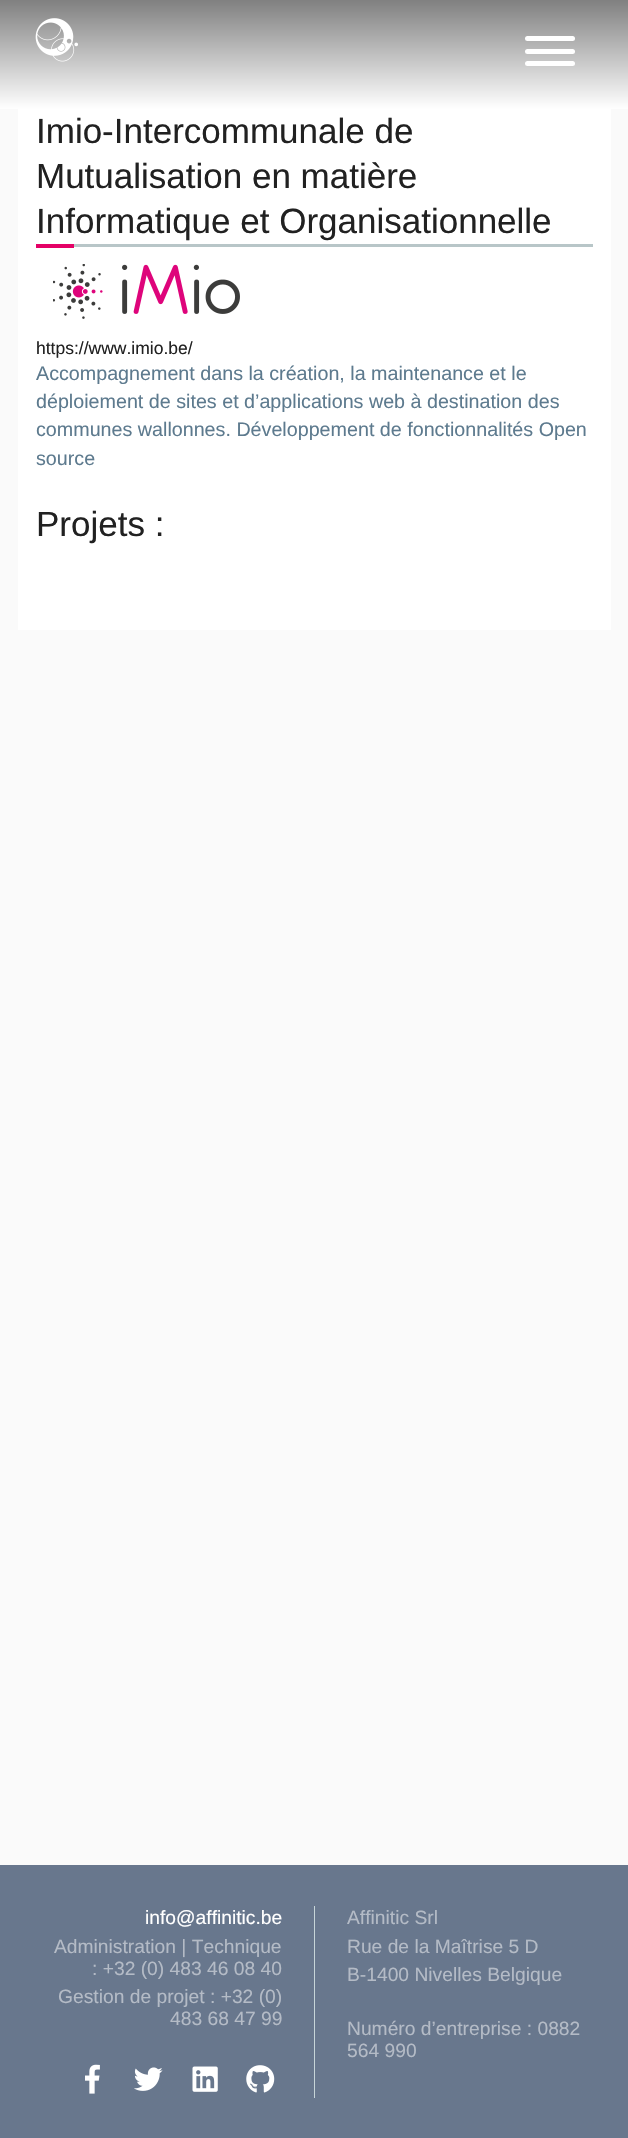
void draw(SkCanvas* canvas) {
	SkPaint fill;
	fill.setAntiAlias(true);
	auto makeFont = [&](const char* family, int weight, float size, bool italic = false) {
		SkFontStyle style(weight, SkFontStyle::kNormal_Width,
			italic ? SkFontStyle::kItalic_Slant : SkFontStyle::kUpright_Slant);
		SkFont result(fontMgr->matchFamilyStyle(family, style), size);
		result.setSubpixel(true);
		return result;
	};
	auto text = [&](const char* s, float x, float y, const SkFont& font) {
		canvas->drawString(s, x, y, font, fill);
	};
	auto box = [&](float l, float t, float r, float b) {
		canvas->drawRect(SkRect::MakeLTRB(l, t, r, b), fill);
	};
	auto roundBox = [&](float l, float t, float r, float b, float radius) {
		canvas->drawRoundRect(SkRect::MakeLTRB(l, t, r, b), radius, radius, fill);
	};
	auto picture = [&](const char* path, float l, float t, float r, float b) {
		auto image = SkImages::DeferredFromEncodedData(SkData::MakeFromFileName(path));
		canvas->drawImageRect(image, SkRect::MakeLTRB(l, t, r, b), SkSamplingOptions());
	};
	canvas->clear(0xFFFAFAFA);
	{
		const SkColor colors[] = {0xFF808080, 0xFFFFFFFF};
		const float stops[] = {0, 1};
		const SkPoint ends[] = {{314, 0}, {314, 109}};
		fill.setShader(SkGradientShader::MakeLinear(ends, colors, stops, 2, SkTileMode::kClamp));
		fill.setAlpha(255);
	}
	box(0, 0, 628, 109);
	picture("image0.png", 35, 18, 78, 62);
	fill.setShader(nullptr);
	fill.setColor(0xFFFFFFFF);
	roundBox(525, 49, 575, 54, 2.5f);
	roundBox(525, 36, 575, 41, 2.5f);
	roundBox(525, 61, 575, 66, 2.5f);
	box(18, 109, 611, 630);
	fill.setColor(0xFFB8C6C8);
	box(74, 244, 593, 247);
	fill.setColor(0xFFE40166);
	box(36, 244, 74, 248);
	picture("image1.png", 53, 264, 240, 319);
	fill.setColor(0xFF68778D);
	box(0, 1865, 628, 2138);
	picture("image2.png", 85, 2064, 100, 2094);
	picture("image3.png", 134, 2067, 163, 2091);
	picture("image4.png", 192, 2066, 218, 2092);
	picture("image5.png", 246, 2065, 275, 2093);
	fill.setColor(0xFFC7D5D8);
	canvas->drawPath(SkPathBuilder().moveTo(314, 1906).lineTo(314, 2098).lineTo(613, 2098).lineTo(315, 2098).lineTo(315, 1906).lineTo(613, 1906).close().detach(), fill);
	auto font1 = makeFont("Liberation Sans", 400, 35);
	fill.setColor(0xFF212121);
	text("Imio-Intercommunale de", 36, 143, font1);
	text("Mutualisation en matière", 36, 188, font1);
	text("Informatique et Organisationnelle", 36, 233, font1);
	auto font2 = makeFont("Liberation Sans", 400, 17.5f);
	text("https://www.imio.be/", 36, 354, font2);
	auto font3 = makeFont("Liberation Sans", 400, 19.7f);
	fill.setColor(0xFF5D7A8E);
	text("Accompagnement dans la création, la maintenance et le", 36, 380, font3);
	text("déploiement de sites et d’applications web à destination des", 36, 408, font3);
	text("communes wallonnes. Développement de fonctionnalités Open", 36, 436, font3);
	text("source", 36, 465, font3);
	fill.setColor(0xFF212121);
	text("Projets :", 36, 536, font1);
	auto font4 = makeFont("Liberation Sans", 400, 19.25f);
	fill.setColor(0xFFFFFFFF);
	text("info@affinitic.be", 145, 1924, font4);
	fill.setColor(0xFFB4BBC6);
	text("Administration | Technique", 54, 1953, font4);
	text(": +32 (0) 483 46 08 40", 92, 1975, font4);
	text("Gestion de projet : +32 (0)", 58, 2003, font4);
	text("483 68 47 99", 170, 2025, font4);
	text("Affinitic Srl", 347, 1924, font4);
	text("Rue de la Maîtrise 5 D", 347, 1953, font4);
	text("B-1400 Nivelles Belgique", 347, 1981, font4);
	text("Numéro d’entreprise : 0882", 347, 2035, font4);
	text("564 990", 347, 2057, font4);
}
